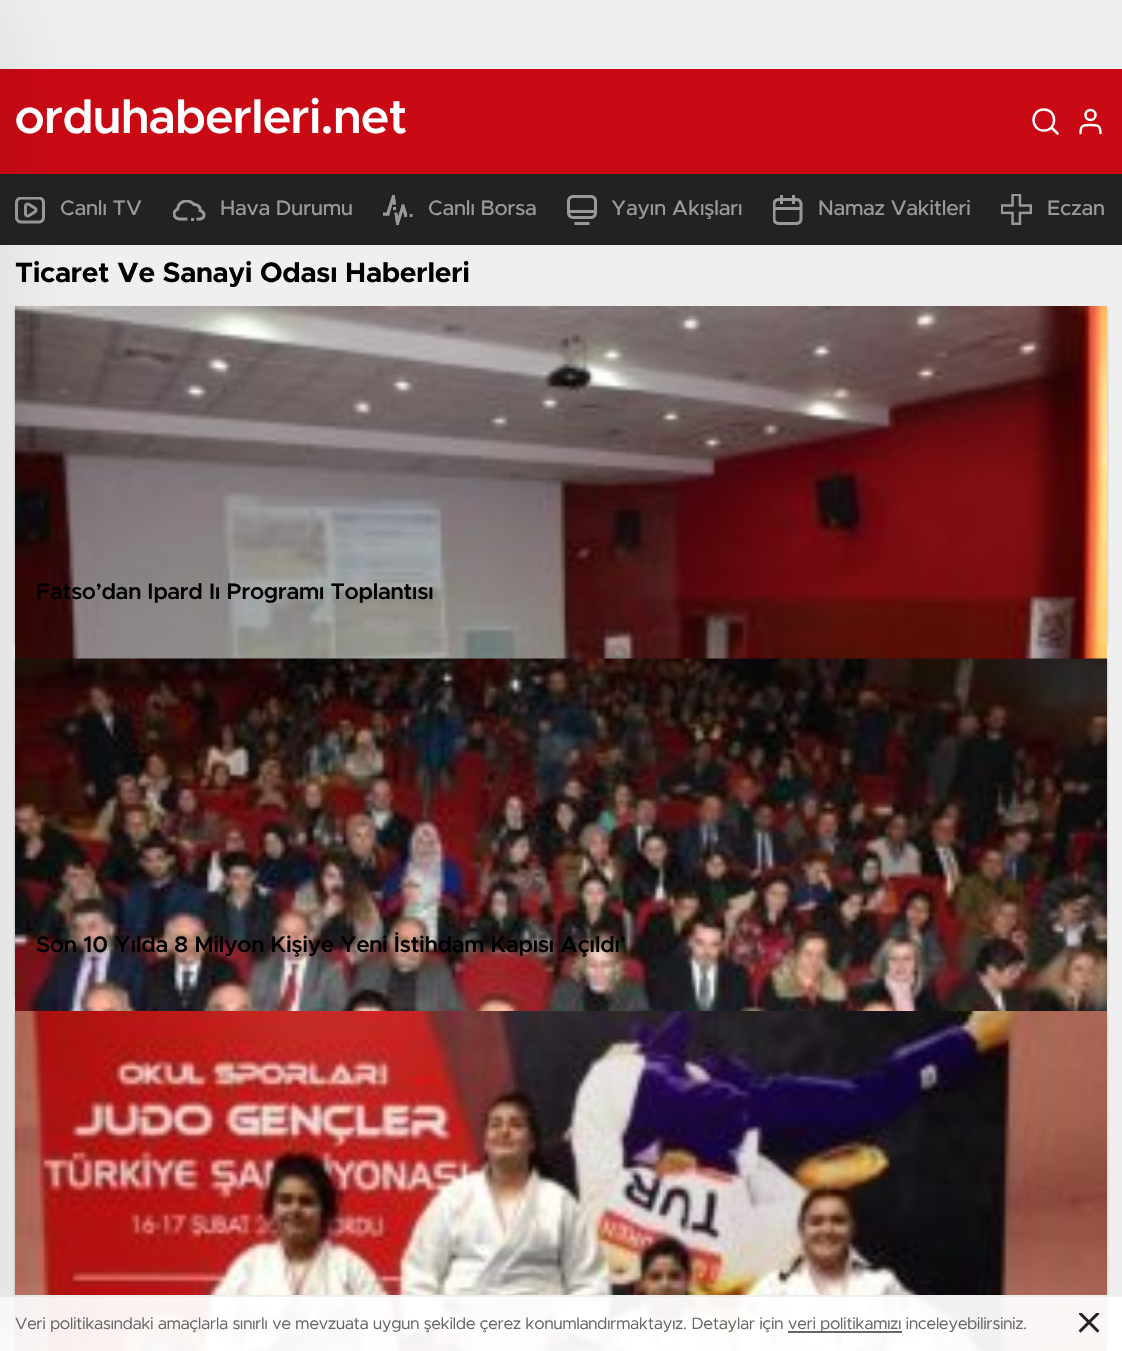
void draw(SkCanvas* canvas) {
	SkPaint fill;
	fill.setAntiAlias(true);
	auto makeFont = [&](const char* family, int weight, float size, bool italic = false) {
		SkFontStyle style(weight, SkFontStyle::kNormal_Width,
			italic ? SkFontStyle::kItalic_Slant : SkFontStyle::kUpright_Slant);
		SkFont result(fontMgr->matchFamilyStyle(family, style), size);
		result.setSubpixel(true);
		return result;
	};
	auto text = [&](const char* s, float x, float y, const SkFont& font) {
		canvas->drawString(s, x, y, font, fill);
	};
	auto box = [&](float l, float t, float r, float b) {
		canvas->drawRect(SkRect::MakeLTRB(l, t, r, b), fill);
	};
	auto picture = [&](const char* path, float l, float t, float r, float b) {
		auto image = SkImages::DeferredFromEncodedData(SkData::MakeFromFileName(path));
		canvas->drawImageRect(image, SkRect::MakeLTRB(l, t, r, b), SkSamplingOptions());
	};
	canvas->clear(0xFFEFEFEF);
	fill.setColor(0xFFC90914);
	box(0, 69, 1122, 174);
	fill.setColor(0xFF222222);
	box(0, 174, 1122, 245);
	picture("image0.png", 15, 197, 45, 224);
	fill.setColor(0x45111519);
	fill.setMaskFilter(SkMaskFilter::MakeBlur(kNormal_SkBlurStyle, 1.5f));
	canvas->drawRect(SkRect::MakeLTRB(15, 308, 1107, 645), fill);
	fill.setMaskFilter(nullptr);
	fill.setMaskFilter(SkMaskFilter::MakeBlur(kNormal_SkBlurStyle, 1.5f));
	canvas->drawRect(SkRect::MakeLTRB(15, 660, 1107, 998), fill);
	fill.setMaskFilter(nullptr);
	picture("image6.png", 15, 306, 1107, 659);
	fill.setMaskFilter(SkMaskFilter::MakeBlur(kNormal_SkBlurStyle, 1.5f));
	canvas->drawRect(SkRect::MakeLTRB(15, 1013, 1107, 1350), fill);
	fill.setMaskFilter(nullptr);
	picture("image7.png", 15, 658, 1107, 1011);
	picture("image8.png", 15, 1011, 1107, 1351);
	fill.setColor(0xF0FFFFFF);
	box(0, 1297, 1122, 1351);
	fill.setColor(0xFFEEEEEE);
	box(13, 1295, 1109, 1297);
	fill.setColor(0x1A000000);
	fill.setMaskFilter(SkMaskFilter::MakeBlur(kNormal_SkBlurStyle, 45));
	canvas->drawRect(SkRect::MakeLTRB(-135, 8, -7, 1344), fill);
	fill.setMaskFilter(nullptr);
	fill.setStyle(SkPaint::kStroke_Style);
	fill.setStrokeWidth(2.5f);
	fill.setStrokeCap(SkPaint::kRound_Cap);
	fill.setStrokeJoin(SkPaint::kRound_Join);
	fill.setColor(0xFFFFFFFF);
	canvas->drawPath(SkPathBuilder().moveTo(1044, 130.5f).cubicTo(1057.5f, 130.5f, 1057.5f, 109.5f, 1044, 109.5f).cubicTo(1030, 109.5f, 1030, 130.5f, 1044, 130.5f).close().moveTo(1051.5f, 127.5f).lineTo(1057.5f, 133.5f).detach(), fill);
	canvas->drawPath(SkPathBuilder().moveTo(1100.5f, 133).cubicTo(1100.5f, 125, 1097.5f, 125, 1090.5f, 125).cubicTo(1083.5f, 125, 1080.5f, 125, 1080.5f, 133).detach(), fill);
	fill.setStrokeCap(SkPaint::kButt_Cap);
	fill.setStrokeJoin(SkPaint::kMiter_Join);
	canvas->drawCircle(1090.5f, 115, 5, fill);
	picture("image1.png", 173, 200, 206, 221);
	picture("image2.png", 383, 195, 413, 225);
	picture("image3.png", 567, 195, 597, 225);
	picture("image4.png", 773, 195, 803, 225);
	picture("image5.png", 1001, 194, 1032, 225);
	fill.setStyle(SkPaint::kFill_Style);
	fill.setColor(0xFF666666);
	box(788, 1331, 902, 1333);
	picture("image9.png", 1079, 1313, 1100, 1333);
	auto font1 = makeFont("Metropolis", 600, 48);
	fill.setColor(0xFFFFFFFF);
	text("orduhaberleri.net", 15, 133, font1);
	auto font2 = makeFont("Metropolis", 500, 21);
	fill.setColor(0xFF999999);
	text("Canlı TV", 60, 215, font2);
	text("Hava Durumu", 220, 215, font2);
	text("Canlı Borsa", 428, 215, font2);
	text("Yayın Akışları", 611, 215, font2);
	text("Namaz Vakitleri", 818, 215, font2);
	text("Eczan", 1047, 215, font2);
	auto font3 = makeFont("Metropolis", 700, 28.1f);
	fill.setColor(0xFF000000);
	text("Ticaret Ve Sanayi Odası Haberleri", 15, 282, font3);
	auto font4 = makeFont("Metropolis", 600, 22.5f);
	text("Fatso’dan Ipard Iı Programı Toplantısı", 36, 599, font4);
	text("Son 10 Yılda 8 Milyon Kişiye Yeni İstihdam Kapısı Açıldı’", 36, 952, font4);
	auto font5 = makeFont("Metropolis", 400, 16.5f);
	fill.setColor(0xFF666666);
	text("Veri politikasındaki amaçlarla sınırlı ve mevzuata uygun şekilde çerez konumlandırmaktayız. Detaylar için", 15, 1329, font5);
	text("veri politikamızı inceleyebilirsiniz.", 788, 1329, font5);
}
